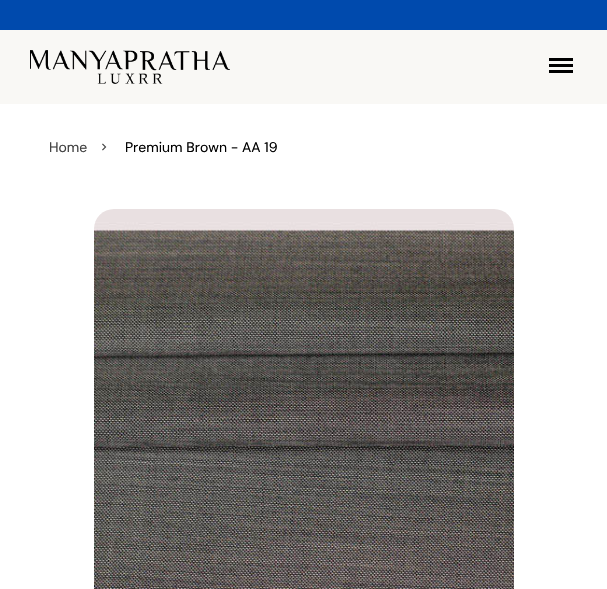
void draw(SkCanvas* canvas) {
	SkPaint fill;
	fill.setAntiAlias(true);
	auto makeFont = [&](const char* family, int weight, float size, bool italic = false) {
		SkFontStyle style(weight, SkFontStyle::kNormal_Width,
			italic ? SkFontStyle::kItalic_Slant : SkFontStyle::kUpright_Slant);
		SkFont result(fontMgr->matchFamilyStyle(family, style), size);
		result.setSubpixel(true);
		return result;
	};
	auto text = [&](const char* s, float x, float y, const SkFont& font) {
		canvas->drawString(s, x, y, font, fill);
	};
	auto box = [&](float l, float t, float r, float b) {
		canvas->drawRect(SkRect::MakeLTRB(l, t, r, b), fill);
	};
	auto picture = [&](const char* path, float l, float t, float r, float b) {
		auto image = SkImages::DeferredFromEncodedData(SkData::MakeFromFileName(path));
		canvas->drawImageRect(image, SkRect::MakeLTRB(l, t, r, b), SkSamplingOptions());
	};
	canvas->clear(0xFFFFFFFF);
	fill.setColor(0xFFF9F8F5);
	box(0, 30, 607, 104);
	fill.setColor(0xFF004AAD);
	box(0, 0, 607, 30);
	picture("image0.png", 30, 50, 230, 84);
	fill.setColor(0xFF000000);
	box(549, 64, 573, 67);
	box(549, 58, 573, 61);
	box(549, 70, 573, 73);
	picture("image1.png", 102, 143, 107, 151);
	picture("image2.png", 94, 209, 514, 589);
	auto font1 = makeFont("DM Sans", 400, 14);
	fill.setColor(0xFF404040);
	text("Home", 49, 152, font1);
	fill.setColor(0xFF000000);
	text("Premium Brown - AA 19", 125, 152, font1);
}
